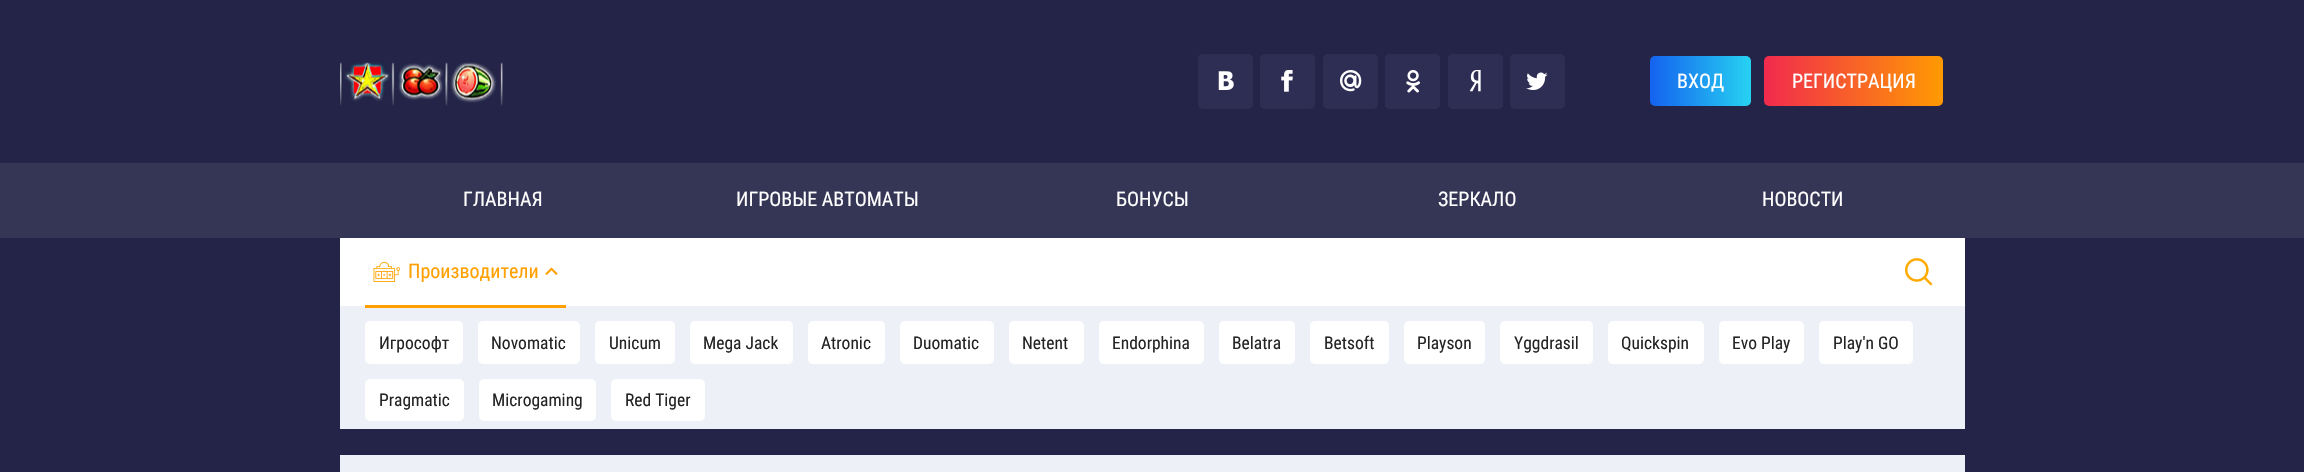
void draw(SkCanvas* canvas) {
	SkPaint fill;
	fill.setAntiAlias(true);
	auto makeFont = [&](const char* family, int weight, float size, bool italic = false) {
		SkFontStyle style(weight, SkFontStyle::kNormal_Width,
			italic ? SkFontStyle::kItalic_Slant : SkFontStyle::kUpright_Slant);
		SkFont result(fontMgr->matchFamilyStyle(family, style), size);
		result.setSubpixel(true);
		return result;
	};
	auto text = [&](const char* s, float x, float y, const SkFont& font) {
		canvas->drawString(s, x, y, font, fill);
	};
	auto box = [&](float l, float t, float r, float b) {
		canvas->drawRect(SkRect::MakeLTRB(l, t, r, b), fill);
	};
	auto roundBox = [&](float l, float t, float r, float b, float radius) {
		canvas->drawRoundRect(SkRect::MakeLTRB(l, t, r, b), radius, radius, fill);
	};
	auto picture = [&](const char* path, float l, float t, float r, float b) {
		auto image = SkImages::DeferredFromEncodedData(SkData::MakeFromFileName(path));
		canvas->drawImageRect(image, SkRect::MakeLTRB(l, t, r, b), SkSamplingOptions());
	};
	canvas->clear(0xFF232447);
	picture("image0.png", 340, 62, 503, 106);
	fill.setColor(0xFF2E2E55);
	roundBox(1198, 54, 1253, 109, 5);
	picture("image1.png", 1218, 71, 1234, 90);
	roundBox(1260, 54, 1315, 109, 5);
	picture("image2.png", 1281, 70, 1293, 92);
	roundBox(1323, 54, 1378, 109, 5);
	picture("image3.png", 1340, 70, 1362, 92);
	roundBox(1385, 54, 1440, 109, 5);
	picture("image4.png", 1406, 70, 1420, 93);
	roundBox(1448, 54, 1503, 109, 5);
	picture("image5.png", 1470, 70, 1481, 92);
	roundBox(1510, 54, 1565, 109, 5);
	picture("image6.png", 1526, 72, 1548, 90);
	{
		const SkColor colors[] = {0xFF1462EF, 0xFF27D2F2};
		const float stops[] = {0, 1};
		const SkPoint ends[] = {{1650, 81}, {1751, 81}};
		fill.setShader(SkGradientShader::MakeLinear(ends, colors, stops, 2, SkTileMode::kClamp));
		fill.setAlpha(255);
	}
	roundBox(1650, 56, 1751, 106, 5);
	{
		const SkColor colors[] = {0xFFF12A4E, 0xFFFF9A01};
		const float stops[] = {0, 1};
		const SkPoint ends[] = {{1764, 81}, {1943, 81}};
		fill.setShader(SkGradientShader::MakeLinear(ends, colors, stops, 2, SkTileMode::kClamp));
		fill.setAlpha(255);
	}
	roundBox(1764, 56, 1943, 106, 5);
	fill.setShader(nullptr);
	fill.setColor(0xFF353556);
	box(0, 163, 2304, 238);
	fill.setColor(0xFFFFFFFF);
	box(340, 238, 1965, 306);
	picture("image7.png", 373, 261, 400, 282);
	picture("image8.png", 545, 267, 558, 275);
	fill.setColor(0xFFEDF1F7);
	box(340, 306, 1965, 429);
	fill.setColor(0xFFFFA000);
	box(365, 305, 566, 308);
	picture("image9.png", 1905, 258, 1933, 286);
	fill.setColor(0xFFFFFFFF);
	roundBox(365, 321, 463, 364, 5);
	roundBox(478, 321, 580, 364, 5);
	roundBox(595, 321, 675, 364, 5);
	roundBox(690, 321, 793, 364, 5);
	roundBox(808, 321, 885, 364, 5);
	roundBox(900, 321, 994, 364, 5);
	roundBox(1009, 321, 1084, 364, 5);
	roundBox(1099, 321, 1204, 364, 5);
	roundBox(1219, 321, 1295, 364, 5);
	roundBox(1310, 321, 1389, 364, 5);
	roundBox(1404, 321, 1485, 364, 5);
	roundBox(1500, 321, 1593, 364, 5);
	roundBox(1608, 321, 1704, 364, 5);
	roundBox(1719, 321, 1804, 364, 5);
	roundBox(1819, 321, 1913, 364, 5);
	roundBox(365, 379, 464, 421, 5);
	roundBox(479, 379, 596, 421, 5);
	roundBox(611, 379, 705, 421, 5);
	fill.setColor(0xFFEDF1F7);
	box(340, 455, 1965, 472);
	auto font1 = makeFont("Roboto Condensed", 400, 20);
	fill.setColor(0xFFFFFFFF);
	text("ВХОД", 1677, 88, font1);
	text("РЕГИСТРАЦИЯ", 1792, 88, font1);
	text("ГЛАВНАЯ", 463, 206, font1);
	text("ИГРОВЫЕ АВТОМАТЫ", 736, 206, font1);
	text("БОНУСЫ", 1116, 206, font1);
	text("ЗЕРКАЛО", 1438, 206, font1);
	text("НОВОСТИ", 1762, 206, font1);
	fill.setColor(0xFFFFA000);
	text("Производители", 408, 278, font1);
	auto font2 = makeFont("Roboto Condensed", 400, 17.5f);
	fill.setColor(0xFF242424);
	text("Игрософт", 379, 349, font2);
	text("Novomatic", 491, 349, font2);
	text("Unicum", 609, 349, font2);
	text("Mega Jack", 703, 349, font2);
	text("Atronic", 821, 349, font2);
	text("Duomatic", 913, 349, font2);
	text("Netent", 1022, 349, font2);
	text("Endorphina", 1112, 349, font2);
	text("Belatra", 1232, 349, font2);
	text("Betsoft", 1324, 349, font2);
	text("Playson", 1417, 349, font2);
	text("Yggdrasil", 1514, 349, font2);
	text("Quickspin", 1621, 349, font2);
	text("Evo Play", 1732, 349, font2);
	text("Play'n GO", 1833, 349, font2);
	text("Pragmatic", 379, 406, font2);
	text("Microgaming", 492, 406, font2);
	text("Red Tiger", 625, 406, font2);
}
